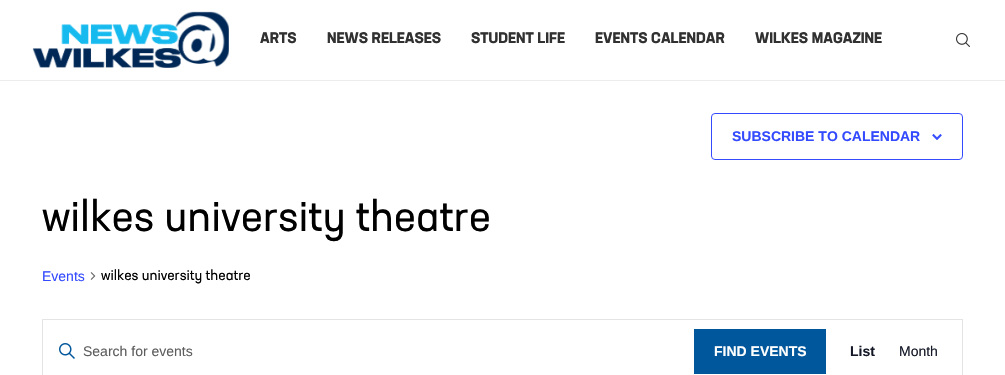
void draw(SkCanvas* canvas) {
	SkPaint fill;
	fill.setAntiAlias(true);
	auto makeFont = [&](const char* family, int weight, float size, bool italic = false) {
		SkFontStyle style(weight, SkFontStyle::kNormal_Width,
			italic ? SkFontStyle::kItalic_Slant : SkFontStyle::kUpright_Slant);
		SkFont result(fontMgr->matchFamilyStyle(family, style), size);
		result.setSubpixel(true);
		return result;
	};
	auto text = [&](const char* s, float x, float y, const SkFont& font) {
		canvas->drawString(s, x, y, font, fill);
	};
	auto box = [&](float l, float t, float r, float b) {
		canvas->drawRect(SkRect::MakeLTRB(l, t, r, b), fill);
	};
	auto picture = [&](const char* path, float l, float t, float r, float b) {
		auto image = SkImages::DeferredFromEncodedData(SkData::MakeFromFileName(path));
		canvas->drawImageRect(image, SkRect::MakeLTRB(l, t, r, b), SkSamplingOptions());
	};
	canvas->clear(0xFFFFFFFF);
	fill.setColor(0xFFECECEC);
	box(0, 80, 1005, 81);
	picture("image0.png", 32, 11, 229, 68);
	picture("image1.png", 956, 33, 970, 47);
	fill.setStyle(SkPaint::kStroke_Style);
	fill.setStrokeWidth(1);
	fill.setColor(0xFF334AFF);
	canvas->drawRoundRect(SkRect::MakeLTRB(711.5f, 113.5f, 962.5f, 159.5f), 3.5f, 3.5f, fill);
	picture("image2.png", 932, 134, 942, 140);
	picture("image3.png", 90, 272, 96, 280);
	fill.setColor(0xFFE4E4E4);
	canvas->drawRect(SkRect::MakeLTRB(42.5f, 319.5f, 962.5f, 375.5f), fill);
	picture("image4.png", 59, 343, 75, 359);
	fill.setStyle(SkPaint::kFill_Style);
	fill.setColor(0xFF01579B);
	box(694, 329, 826, 374);
	auto font1 = makeFont("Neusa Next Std", 700, 15);
	fill.setColor(0xFF313131);
	text("ARTS", 260, 43, font1);
	text("NEWS RELEASES", 327, 43, font1);
	text("STUDENT LIFE", 471, 43, font1);
	text("EVENTS CALENDAR", 595, 43, font1);
	text("WILKES MAGAZINE", 755, 43, font1);
	auto font2 = makeFont("Liberation Sans", 700, 14);
	fill.setColor(0xFF334AFF);
	text("SUBSCRIBE TO CALENDAR", 732, 141, font2);
	auto font3 = makeFont("Neusa Next Std", 400, 42);
	fill.setColor(0xFF000000);
	text("wilkes university theatre", 42, 231, font3);
	auto font4 = makeFont("Liberation Sans", 400, 14);
	fill.setColor(0xFF334AFF);
	text("Events", 42, 281, font4);
	auto font5 = makeFont("Neusa Next Std", 400, 14);
	fill.setColor(0xFF000000);
	text("wilkes university theatre", 101, 280, font5);
	fill.setColor(0xFF5D5D5D);
	text("Search for events", 83, 356, font4);
	fill.setColor(0xFFFFFFFF);
	text("FIND EVENTS", 714, 356, font2);
	fill.setColor(0xFF141827);
	text("List", 850, 356, font2);
	text("Month", 899, 356, font4);
}
